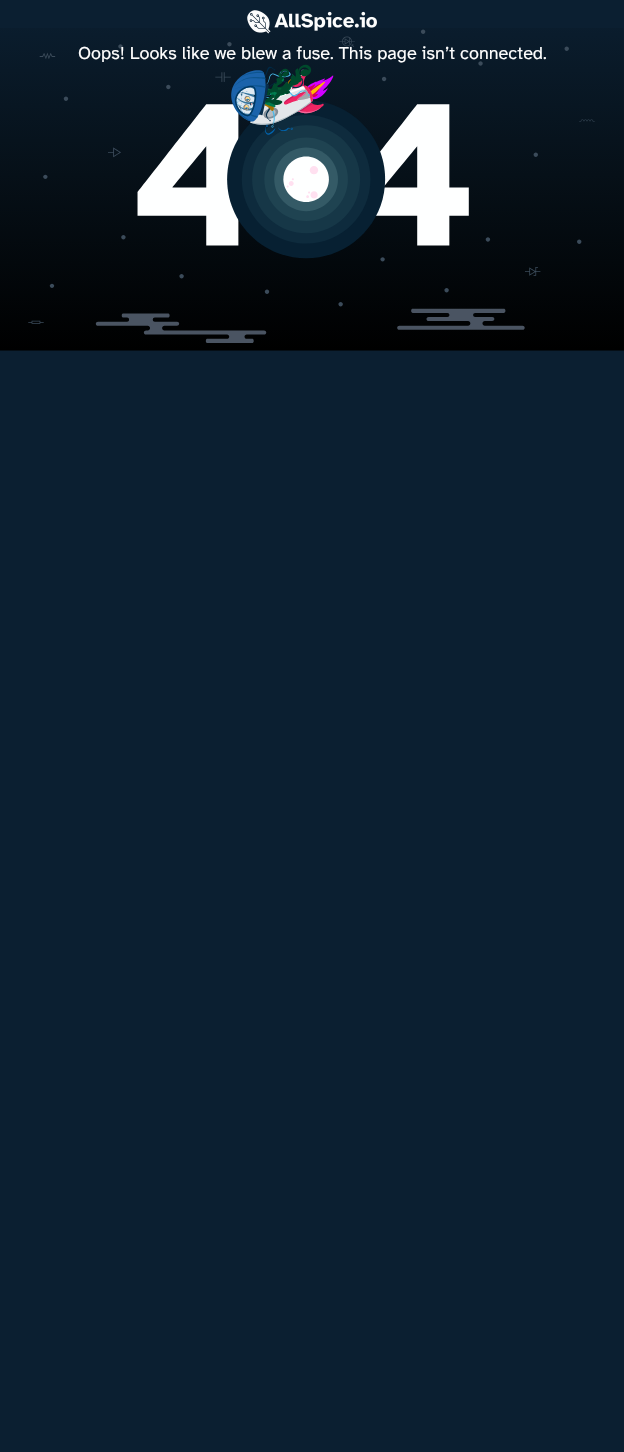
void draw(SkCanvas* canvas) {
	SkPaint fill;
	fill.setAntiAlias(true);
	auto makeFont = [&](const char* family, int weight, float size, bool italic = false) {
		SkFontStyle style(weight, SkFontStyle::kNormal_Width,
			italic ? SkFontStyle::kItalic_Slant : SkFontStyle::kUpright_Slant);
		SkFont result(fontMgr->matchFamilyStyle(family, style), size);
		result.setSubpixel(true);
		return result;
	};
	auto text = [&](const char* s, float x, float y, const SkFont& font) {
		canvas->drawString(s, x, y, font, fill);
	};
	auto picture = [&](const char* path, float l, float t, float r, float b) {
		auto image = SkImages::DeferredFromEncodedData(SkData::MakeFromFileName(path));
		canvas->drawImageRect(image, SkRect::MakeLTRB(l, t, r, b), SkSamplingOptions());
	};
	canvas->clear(0xFF0B1F31);
	picture("image0.png", 0, 28, 624, 351);
	picture("image1.png", 247, 10, 377, 34);
	auto font1 = makeFont("Atkinson Hyperlegible", 400, 18);
	fill.setColor(0xFFFDFDFD);
	text("Oops! Looks like we blew a fuse. This page isn’t connected.", 78, 59, font1);
}
